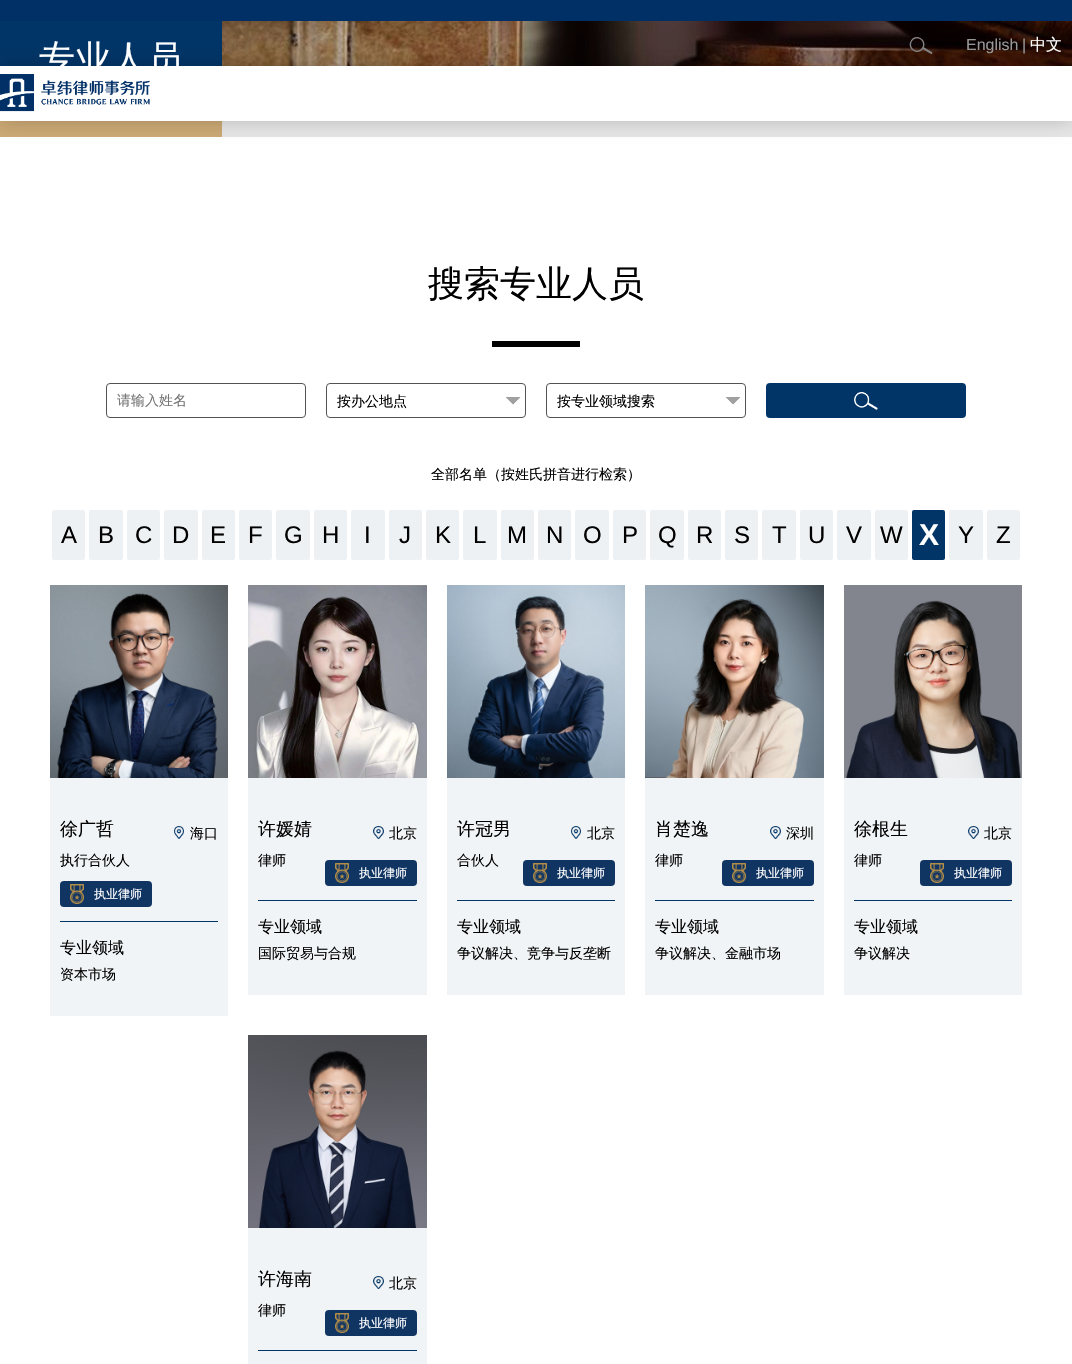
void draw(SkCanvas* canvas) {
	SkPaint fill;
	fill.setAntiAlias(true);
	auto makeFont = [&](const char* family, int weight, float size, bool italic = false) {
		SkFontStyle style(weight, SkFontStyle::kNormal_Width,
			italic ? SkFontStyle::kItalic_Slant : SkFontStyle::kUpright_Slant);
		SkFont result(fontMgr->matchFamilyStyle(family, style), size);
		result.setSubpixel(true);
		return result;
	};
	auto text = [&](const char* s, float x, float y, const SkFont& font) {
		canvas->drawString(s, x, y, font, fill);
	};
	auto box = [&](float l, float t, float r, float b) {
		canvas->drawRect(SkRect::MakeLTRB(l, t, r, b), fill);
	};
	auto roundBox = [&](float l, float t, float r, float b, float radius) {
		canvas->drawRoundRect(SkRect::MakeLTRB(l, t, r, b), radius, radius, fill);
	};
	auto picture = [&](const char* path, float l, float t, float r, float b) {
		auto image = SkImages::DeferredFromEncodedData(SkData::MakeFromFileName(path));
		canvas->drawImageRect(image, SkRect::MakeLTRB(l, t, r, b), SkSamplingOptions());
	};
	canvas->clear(0xFFFFFFFF);
	picture("image0.png", 222, 21, 1072, 66);
	fill.setColor(0xFF023567);
	box(0, 21, 222, 66);
	fill.setColor(0xFFE6E6E6);
	box(222, 121, 1072, 137);
	fill.setColor(0xFFCCA975);
	box(0, 121, 222, 137);
	fill.setColor(0xFF000000);
	box(492, 341, 580, 347);
	fill.setStyle(SkPaint::kStroke_Style);
	fill.setStrokeWidth(1);
	fill.setColor(0xFF535353);
	canvas->drawRoundRect(SkRect::MakeLTRB(106.5f, 383.5f, 305.5f, 417.5f), 3.5f, 3.5f, fill);
	picture("image1.png", 505, 397, 521, 405);
	canvas->drawRoundRect(SkRect::MakeLTRB(326.5f, 383.5f, 525.5f, 417.5f), 3.5f, 3.5f, fill);
	picture("image1.png", 725, 397, 741, 405);
	canvas->drawRoundRect(SkRect::MakeLTRB(546.5f, 383.5f, 745.5f, 417.5f), 3.5f, 3.5f, fill);
	fill.setStyle(SkPaint::kFill_Style);
	fill.setColor(0xFF023567);
	roundBox(766, 383, 966, 418, 4);
	picture("image2.png", 854, 392, 878, 410);
	fill.setColor(0xFFEDF1F4);
	roundBox(52, 510, 85, 560, 2);
	roundBox(89, 510, 123, 560, 2);
	roundBox(127, 510, 160, 560, 2);
	roundBox(164, 510, 198, 560, 2);
	roundBox(202, 510, 235, 560, 2);
	roundBox(239, 510, 272, 560, 2);
	roundBox(276, 510, 310, 560, 2);
	roundBox(314, 510, 347, 560, 2);
	roundBox(351, 510, 385, 560, 2);
	roundBox(389, 510, 422, 560, 2);
	roundBox(426, 510, 459, 560, 2);
	roundBox(463, 510, 497, 560, 2);
	roundBox(501, 510, 534, 560, 2);
	roundBox(538, 510, 571, 560, 2);
	roundBox(575, 510, 609, 560, 2);
	roundBox(613, 510, 646, 560, 2);
	roundBox(650, 510, 684, 560, 2);
	roundBox(688, 510, 721, 560, 2);
	roundBox(725, 510, 758, 560, 2);
	roundBox(762, 510, 796, 560, 2);
	roundBox(800, 510, 833, 560, 2);
	roundBox(837, 510, 871, 560, 2);
	roundBox(875, 510, 908, 560, 2);
	fill.setColor(0xFF023567);
	roundBox(912, 510, 945, 560, 2);
	fill.setColor(0xFFEDF1F4);
	roundBox(949, 510, 983, 560, 2);
	roundBox(987, 510, 1020, 560, 2);
	fill.setColor(0xFFF1F4F6);
	box(50, 778, 228, 1016);
	picture("image3.png", 50, 585, 228, 778);
	picture("image4.png", 174, 826, 184, 839);
	fill.setColor(0xFF113563);
	roundBox(60, 881, 152, 907, 4);
	picture("image5.png", 70, 884, 84, 904);
	fill.setColor(0xFF023567);
	box(60, 921, 218, 922);
	fill.setColor(0xFFF1F4F6);
	box(248, 778, 427, 995);
	picture("image6.png", 248, 585, 427, 778);
	picture("image7.png", 373, 826, 384, 839);
	fill.setColor(0xFF113563);
	roundBox(325, 860, 417, 886, 4);
	picture("image8.png", 335, 863, 349, 883);
	fill.setColor(0xFF023567);
	box(258, 900, 417, 901);
	fill.setColor(0xFFF1F4F6);
	box(447, 778, 625, 995);
	picture("image9.png", 447, 585, 625, 778);
	picture("image4.png", 571, 826, 581, 839);
	fill.setColor(0xFF113563);
	roundBox(523, 860, 615, 886, 4);
	picture("image5.png", 533, 863, 547, 883);
	fill.setColor(0xFF023567);
	box(457, 900, 615, 901);
	fill.setColor(0xFFF1F4F6);
	box(645, 778, 824, 995);
	picture("image10.png", 645, 585, 824, 778);
	picture("image7.png", 770, 826, 781, 839);
	fill.setColor(0xFF113563);
	roundBox(722, 860, 814, 886, 4);
	picture("image8.png", 732, 863, 746, 883);
	fill.setColor(0xFF023567);
	box(655, 900, 814, 901);
	fill.setColor(0xFFF1F4F6);
	box(844, 585, 1022, 995);
	picture("image11.png", 844, 585, 1022, 778);
	picture("image12.png", 968, 826, 979, 839);
	fill.setColor(0xFF113563);
	roundBox(920, 860, 1012, 886, 4);
	picture("image8.png", 930, 863, 944, 883);
	fill.setColor(0xFF023567);
	box(854, 900, 1012, 901);
	fill.setColor(0xFFF1F4F6);
	box(248, 1228, 427, 1364);
	picture("image13.png", 248, 1035, 427, 1228);
	picture("image7.png", 373, 1276, 384, 1289);
	fill.setColor(0xFF113563);
	roundBox(325, 1310, 417, 1336, 4);
	picture("image8.png", 335, 1313, 349, 1333);
	fill.setColor(0xFF023567);
	box(258, 1350, 417, 1351);
	fill.setColor(0x33000000);
	fill.setMaskFilter(SkMaskFilter::MakeBlur(kNormal_SkBlurStyle, 10));
	canvas->drawRect(SkRect::MakeLTRB(0, 66, 1072, 121), fill);
	fill.setMaskFilter(nullptr);
	fill.setColor(0xFFFFFFFF);
	box(0, 66, 1072, 121);
	fill.setColor(0xFF013067);
	box(0, 0, 1072, 21);
	picture("image14.png", 909, 37, 933, 54);
	auto font1 = makeFont("WenQuanYi Zen Hei", 500, 36);
	fill.setColor(0xFFFFFFFF);
	text("专业人员", 39, 71, font1);
	fill.setColor(0xFF000000);
	text("搜索专业人员", 428, 296, font1);
	auto font2 = makeFont("WenQuanYi Zen Hei", 500, 14);
	fill.setColor(0xFF757575);
	text("请输入姓名", 117, 405, font2);
	fill.setColor(0xFF000000);
	text("按办公地点", 337, 406, font2);
	text("按专业领域搜索", 557, 406, font2);
	text("全部名单（按姓氏拼音进行检索）", 431, 479, font2);
	auto font3 = makeFont("Liberation Sans", 400, 24);
	text("A", 61, 543, font3);
	text("B", 98, 543, font3);
	text("C", 135, 543, font3);
	text("D", 172, 543, font3);
	text("E", 210, 543, font3);
	text("F", 248, 543, font3);
	text("G", 284, 543, font3);
	text("H", 322, 543, font3);
	text("I", 364, 543, font3);
	text("J", 399, 543, font3);
	text("K", 435, 543, font3);
	text("L", 473, 543, font3);
	text("M", 507, 543, font3);
	text("N", 546, 543, font3);
	text("O", 583, 543, font3);
	text("P", 622, 543, font3);
	text("Q", 658, 543, font3);
	text("R", 696, 543, font3);
	text("S", 734, 543, font3);
	text("T", 772, 543, font3);
	text("U", 808, 543, font3);
	text("V", 846, 543, font3);
	text("W", 880, 543, font3);
	auto font4 = makeFont("Liberation Sans", 700, 30);
	fill.setColor(0xFFFFFFFF);
	text("X", 919, 545, font4);
	fill.setColor(0xFF000000);
	text("Y", 958, 543, font3);
	text("Z", 996, 543, font3);
	auto font5 = makeFont("WenQuanYi Zen Hei", 500, 18);
	text("徐广哲", 60, 835, font5);
	text("海口", 190, 838, font2);
	text("执行合伙人", 60, 865, font2);
	auto font6 = makeFont("WenQuanYi Zen Hei", 500, 12);
	fill.setColor(0xFFFFFFFF);
	text("执业律师", 94, 898, font6);
	auto font7 = makeFont("WenQuanYi Zen Hei", 500, 16);
	fill.setColor(0xFF000000);
	text("专业领域", 60, 953, font7);
	text("资本市场", 60, 979, font2);
	text("许媛婧", 258, 835, font5);
	text("北京", 389, 838, font2);
	text("律师", 258, 865, font2);
	fill.setColor(0xFFFFFFFF);
	text("执业律师", 359, 877, font6);
	fill.setColor(0xFF000000);
	text("专业领域", 258, 932, font7);
	text("国际贸易与合规", 258, 958, font2);
	text("许冠男", 457, 835, font5);
	text("北京", 587, 838, font2);
	text("合伙人", 457, 865, font2);
	fill.setColor(0xFFFFFFFF);
	text("执业律师", 557, 877, font6);
	fill.setColor(0xFF000000);
	text("专业领域", 457, 932, font7);
	text("争议解决、竞争与反垄断", 457, 958, font2);
	text("肖楚逸", 655, 835, font5);
	text("深圳", 786, 838, font2);
	text("律师", 655, 865, font2);
	fill.setColor(0xFFFFFFFF);
	text("执业律师", 756, 877, font6);
	fill.setColor(0xFF000000);
	text("专业领域", 655, 932, font7);
	text("争议解决、金融市场", 655, 958, font2);
	text("徐根生", 854, 835, font5);
	text("北京", 984, 838, font2);
	text("律师", 854, 865, font2);
	fill.setColor(0xFFFFFFFF);
	text("执业律师", 954, 877, font6);
	fill.setColor(0xFF000000);
	text("专业领域", 854, 932, font7);
	text("争议解决", 854, 958, font2);
	text("许海南", 258, 1285, font5);
	text("北京", 389, 1288, font2);
	text("律师", 258, 1315, font2);
	fill.setColor(0xFFFFFFFF);
	text("执业律师", 359, 1327, font6);
	auto font8 = makeFont("Liberation Sans", 400, 16);
	fill.setColor(0xFF989898);
	text("English", 966, 50, font8);
	text("|", 1022, 50, font8);
	fill.setColor(0xFFFFFFFF);
	text("中文", 1030, 50, font7);
	picture("image15.png", 0, 74, 150, 112);
}
